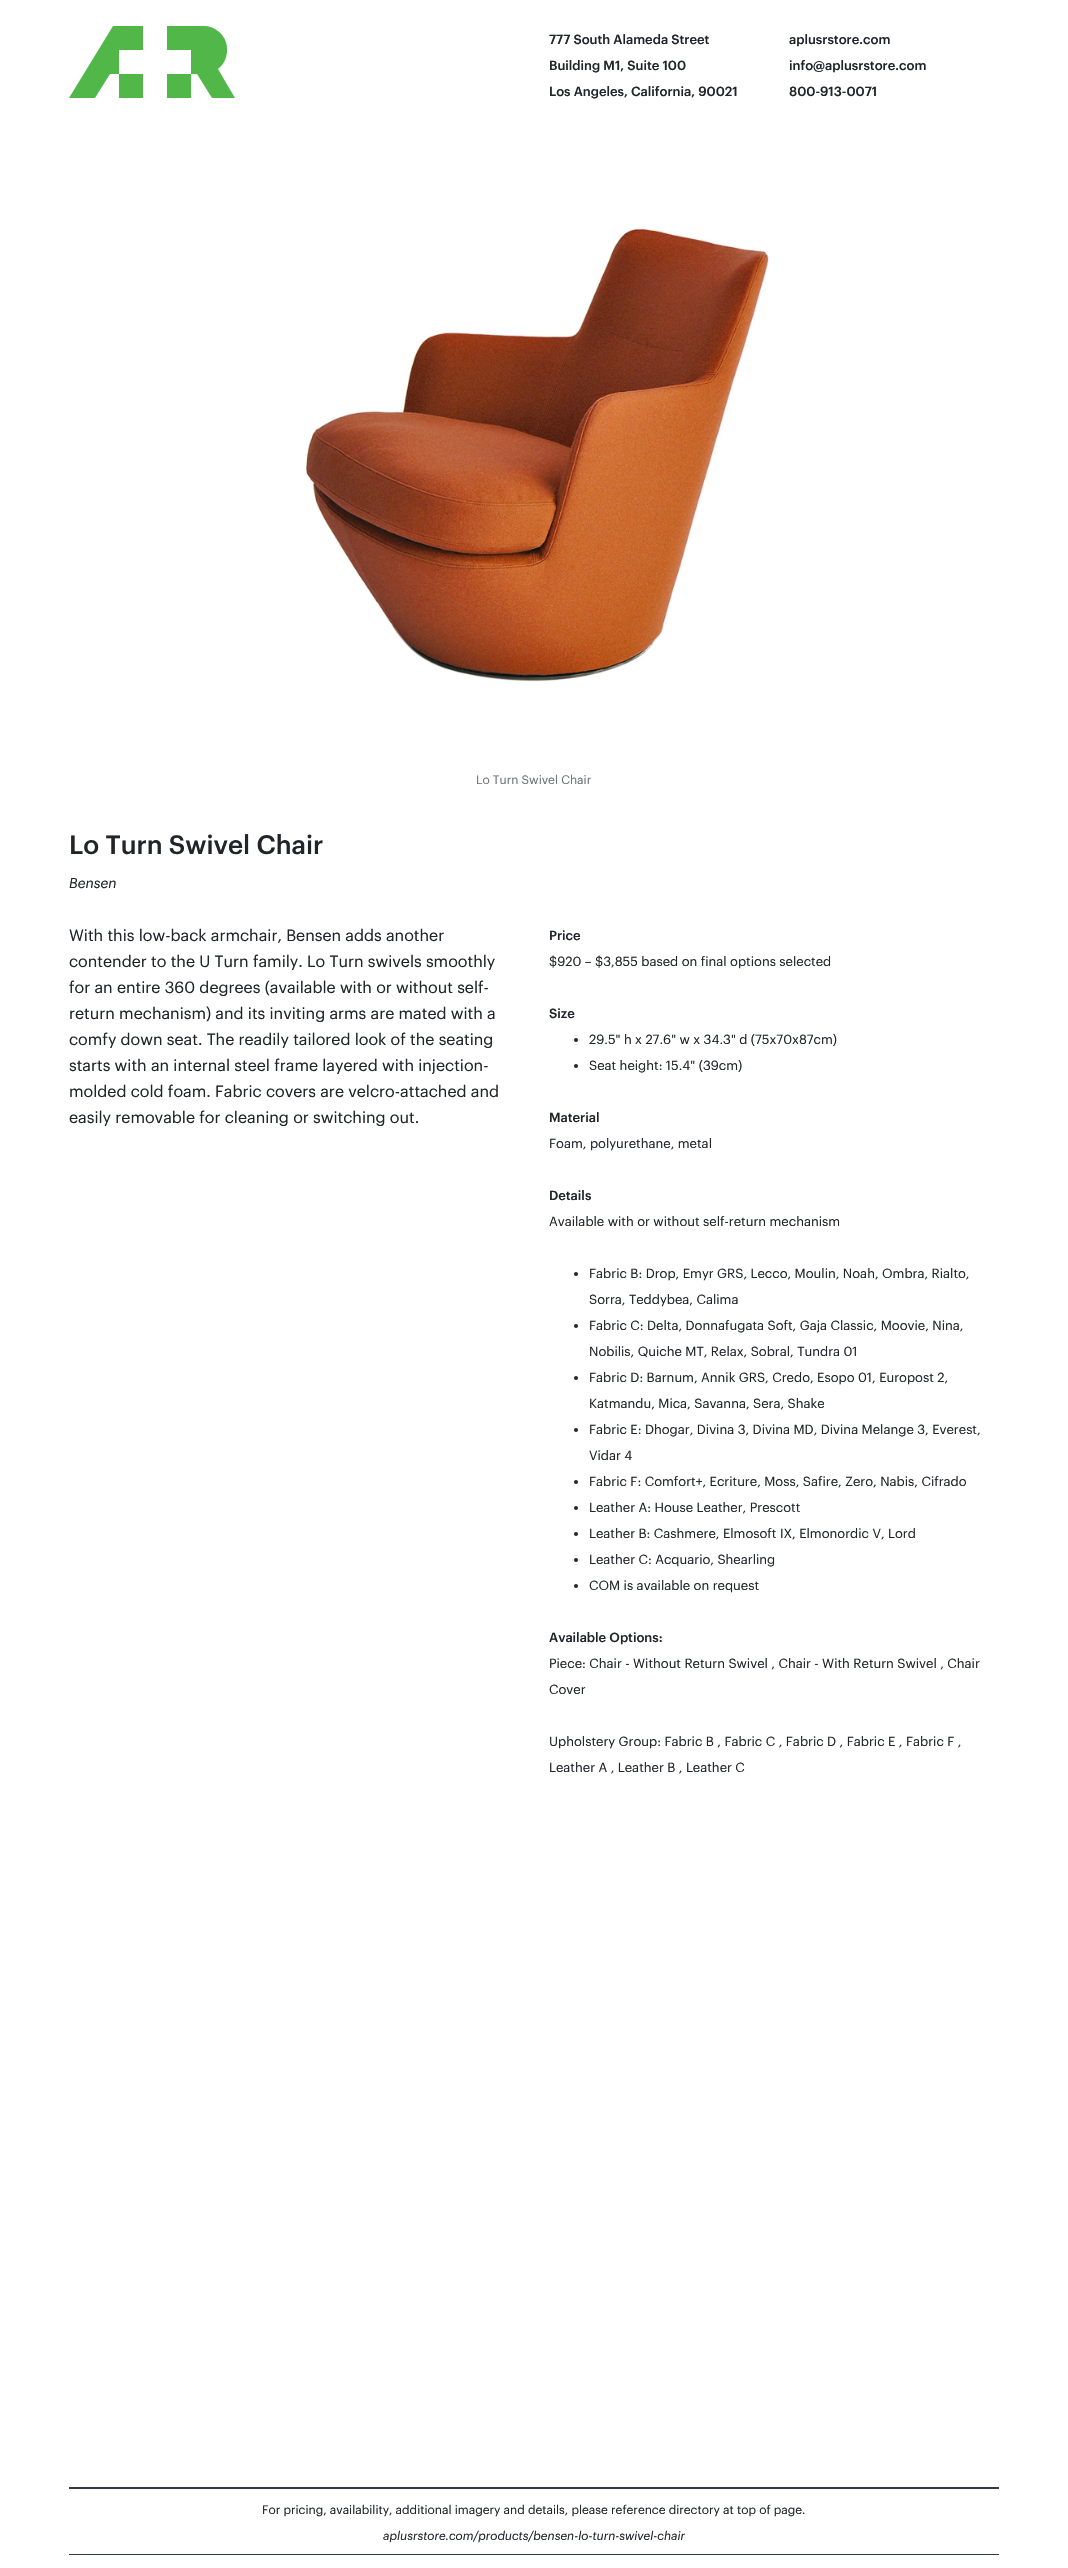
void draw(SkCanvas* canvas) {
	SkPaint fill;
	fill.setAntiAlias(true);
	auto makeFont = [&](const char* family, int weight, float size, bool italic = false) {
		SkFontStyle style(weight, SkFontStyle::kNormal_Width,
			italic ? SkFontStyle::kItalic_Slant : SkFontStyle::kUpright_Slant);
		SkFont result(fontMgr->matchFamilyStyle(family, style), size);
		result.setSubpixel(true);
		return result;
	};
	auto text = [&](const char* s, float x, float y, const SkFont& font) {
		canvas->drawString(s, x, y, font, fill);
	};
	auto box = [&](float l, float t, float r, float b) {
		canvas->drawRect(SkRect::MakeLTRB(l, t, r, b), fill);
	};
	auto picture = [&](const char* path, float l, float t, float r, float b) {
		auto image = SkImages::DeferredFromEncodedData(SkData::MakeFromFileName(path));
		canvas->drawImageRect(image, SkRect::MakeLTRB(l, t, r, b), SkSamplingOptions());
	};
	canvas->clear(0xFFFFFFFF);
	fill.setColor(0xFF50B748);
	canvas->drawPath(SkPathBuilder().moveTo(119, 98).lineTo(119, 74).lineTo(143, 74).lineTo(143, 98).close().moveTo(167, 98).lineTo(191, 98).lineTo(191, 74).lineTo(167, 74).close().moveTo(113, 26).lineTo(69, 98).lineTo(95, 98).lineTo(110, 74).lineTo(119, 74).lineTo(119, 50).lineTo(143, 50).lineTo(143, 26).close().moveTo(218, 69).cubicTo(226, 63, 229, 52, 226, 42).cubicTo(223, 33, 214, 26, 204, 26).lineTo(167, 26).lineTo(167, 50).lineTo(191, 50).lineTo(191, 74).lineTo(197, 74).lineTo(212, 98).lineTo(235, 98).close().detach(), fill);
	picture("image0.png", 304, 228, 769, 682);
	fill.setColor(0xFF212529);
	canvas->drawCircle(576, 1040, 2, fill);
	canvas->drawCircle(576, 1066, 2, fill);
	canvas->drawCircle(576, 1274, 2, fill);
	canvas->drawCircle(576, 1326, 2, fill);
	canvas->drawCircle(576, 1378, 2, fill);
	canvas->drawCircle(576, 1430, 2, fill);
	canvas->drawCircle(576, 1482, 2, fill);
	canvas->drawCircle(576, 1508, 2, fill);
	canvas->drawCircle(576, 1534, 2, fill);
	canvas->drawCircle(576, 1560, 2, fill);
	canvas->drawCircle(576, 1586, 2, fill);
	fill.setColor(0xFF343A40);
	box(69, 2487, 999, 2489);
	box(69, 2554, 999, 2555);
	auto font1 = makeFont("Graphik", 500, 13);
	fill.setColor(0xFF212529);
	text("777 South Alameda Street", 549, 44, font1);
	text("Building M1, Suite 100", 549, 70, font1);
	text("Los Angeles, California, 90021", 549, 96, font1);
	text("aplusrstore.com", 789, 44, font1);
	text("info@aplusrstore.com", 789, 70, font1);
	text("800-913-0071", 789, 96, font1);
	auto font2 = makeFont("Graphik", 400, 12);
	fill.setColor(0xFF6C757D);
	text("Lo Turn Swivel Chair", 476, 784, font2);
	auto font3 = makeFont("Graphik", 500, 26);
	fill.setColor(0xFF212529);
	text("Lo Turn Swivel Chair", 69, 854, font3);
	auto font4 = makeFont("Graphik", 400, 14, true);
	text("Bensen", 69, 888, font4);
	auto font5 = makeFont("Graphik", 400, 16);
	text("With this low-back armchair, Bensen adds another", 69, 941, font5);
	text("contender to the U Turn family. Lo Turn swivels smoothly", 69, 967, font5);
	text("for an entire 360 degrees (available with or without self-", 69, 993, font5);
	text("return mechanism) and its inviting arms are mated with a", 69, 1019, font5);
	text("comfy down seat. The readily tailored look of the seating", 69, 1045, font5);
	text("starts with an internal steel frame layered with injection-", 69, 1071, font5);
	text("molded cold foam. Fabric covers are velcro-attached and", 69, 1097, font5);
	text("easily removable for cleaning or switching out.", 69, 1123, font5);
	text("Price", 549, 940, font1);
	auto font6 = makeFont("Graphik", 400, 13);
	text("$920 – $3,855 based on final options selected", 549, 966, font6);
	text("Size", 549, 1018, font1);
	text("29.5\" h x 27.6\" w x 34.3\" d (75x70x87cm)", 589, 1044, font6);
	text("Seat height: 15.4\" (39cm)", 589, 1070, font6);
	text("Material", 549, 1122, font1);
	text("Foam, polyurethane, metal", 549, 1148, font6);
	text("Details", 549, 1200, font1);
	text("Available with or without self-return mechanism", 549, 1226, font6);
	text("Fabric B: Drop, Emyr GRS, Lecco, Moulin, Noah, Ombra, Rialto,", 589, 1278, font6);
	text("Sorra, Teddybea, Calima", 589, 1304, font6);
	text("Fabric C: Delta, Donnafugata Soft, Gaja Classic, Moovie, Nina,", 589, 1330, font6);
	text("Nobilis, Quiche MT, Relax, Sobral, Tundra 01", 589, 1356, font6);
	text("Fabric D: Barnum, Annik GRS, Credo, Esopo 01, Europost 2,", 589, 1382, font6);
	text("Katmandu, Mica, Savanna, Sera, Shake", 589, 1408, font6);
	text("Fabric E: Dhogar, Divina 3, Divina MD, Divina Melange 3, Everest,", 589, 1434, font6);
	text("Vidar 4", 589, 1460, font6);
	text("Fabric F: Comfort+, Ecriture, Moss, Safire, Zero, Nabis, Cifrado", 589, 1486, font6);
	text("Leather A: House Leather, Prescott", 589, 1512, font6);
	text("Leather B: Cashmere, Elmosoft IX, Elmonordic V, Lord", 589, 1538, font6);
	text("Leather C: Acquario, Shearling", 589, 1564, font6);
	text("COM is available on request", 589, 1590, font6);
	text("Available Options:", 549, 1642, font1);
	text("Piece: Chair - Without Return Swivel , Chair - With Return Swivel , Chair", 549, 1668, font6);
	text("Cover", 549, 1694, font6);
	text("Upholstery Group: Fabric B , Fabric C , Fabric D , Fabric E , Fabric F ,", 549, 1746, font6);
	text("Leather A , Leather B , Leather C", 549, 1772, font6);
	text("For pricing, availability, additional imagery and details, please reference directory at top of page.", 262, 2514, font2);
	auto font7 = makeFont("Graphik", 400, 12, true);
	text("aplusrstore.com/products/bensen-lo-turn-swivel-chair", 383, 2540, font7);
}
